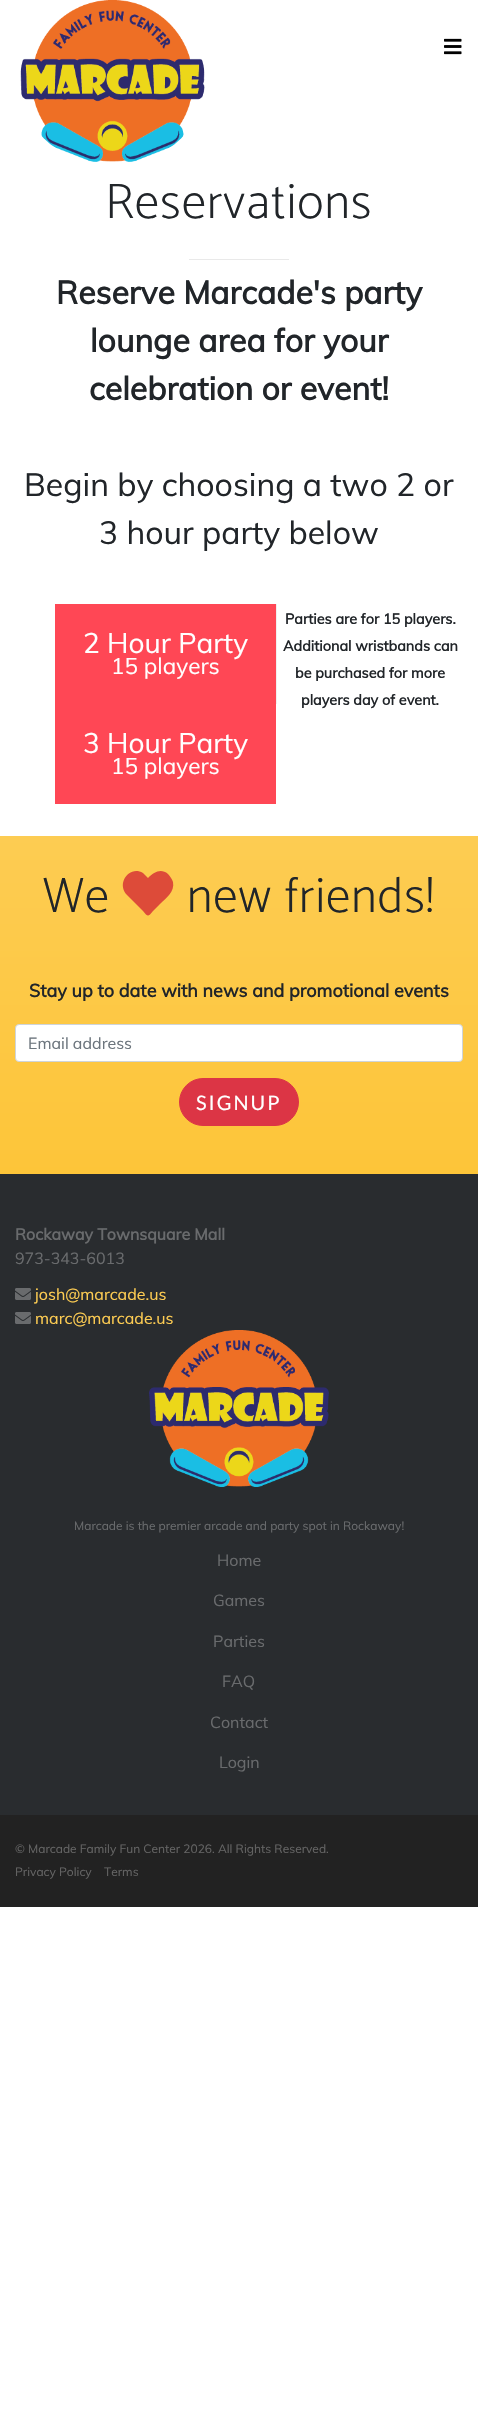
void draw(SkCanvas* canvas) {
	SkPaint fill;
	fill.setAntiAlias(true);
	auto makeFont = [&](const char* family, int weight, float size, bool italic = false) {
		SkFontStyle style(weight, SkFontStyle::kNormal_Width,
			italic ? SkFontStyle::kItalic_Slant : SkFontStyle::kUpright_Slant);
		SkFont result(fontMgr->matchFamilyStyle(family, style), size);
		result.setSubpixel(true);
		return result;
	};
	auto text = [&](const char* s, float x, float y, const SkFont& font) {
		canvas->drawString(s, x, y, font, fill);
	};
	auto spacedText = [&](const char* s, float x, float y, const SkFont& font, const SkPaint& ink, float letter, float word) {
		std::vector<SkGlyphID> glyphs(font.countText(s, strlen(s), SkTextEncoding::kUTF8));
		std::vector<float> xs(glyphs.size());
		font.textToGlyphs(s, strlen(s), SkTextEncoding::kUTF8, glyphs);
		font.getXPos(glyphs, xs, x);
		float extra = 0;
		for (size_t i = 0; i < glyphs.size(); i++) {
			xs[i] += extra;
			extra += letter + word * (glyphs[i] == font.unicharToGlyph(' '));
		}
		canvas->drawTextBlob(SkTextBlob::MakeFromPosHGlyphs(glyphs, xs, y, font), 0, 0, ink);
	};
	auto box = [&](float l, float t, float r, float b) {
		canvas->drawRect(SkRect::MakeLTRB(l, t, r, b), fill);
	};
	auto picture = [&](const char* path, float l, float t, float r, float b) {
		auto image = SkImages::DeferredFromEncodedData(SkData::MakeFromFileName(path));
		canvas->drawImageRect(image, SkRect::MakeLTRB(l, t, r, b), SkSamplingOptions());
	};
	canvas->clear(0xFFFFFFFF);
	picture("image0.png", 20, 0, 205, 162);
	picture("image1.png", 444, 38, 462, 55);
	fill.setColor(0xFFE9E9E9);
	box(189, 259, 289, 260);
	fill.setColor(0xFFFF4755);
	box(55, 604, 276, 804);
	fill.setColor(0xFFEFEFEF);
	box(276, 604, 277, 704);
	{
		const SkColor colors[] = {0xFFFDCC52, 0xFFFDC539};
		const float stops[] = {0, 1};
		const SkPoint ends[] = {{239, 836}, {239, 1174}};
		fill.setShader(SkGradientShader::MakeLinear(ends, colors, stops, 2, SkTileMode::kClamp));
		fill.setAlpha(255);
	}
	box(0, 836, 478, 1174);
	fill.setShader(nullptr);
	fill.setColor(0xFFDD4B39);
	canvas->drawPath(SkPathBuilder().moveTo(168, 874).cubicTo(161, 868, 154, 872, 148, 878).lineTo(143, 873).cubicTo(129, 865, 116, 884, 127, 895).lineTo(143, 911).cubicTo(148, 917, 148, 917, 153, 911).lineTo(160, 904).cubicTo(166, 898, 175, 892, 173, 882).cubicTo(172, 879, 170, 876, 168, 874).close().detach(), fill);
	fill.setColor(0xFFFFFFFF);
	canvas->drawRoundRect(SkRect::MakeLTRB(15.5f, 1024.5f, 462.5f, 1061.5f), 3.5f, 3.5f, fill);
	fill.setStyle(SkPaint::kStroke_Style);
	fill.setStrokeWidth(1);
	fill.setColor(0xFFCED4DA);
	canvas->drawRoundRect(SkRect::MakeLTRB(15.5f, 1024.5f, 462.5f, 1061.5f), 3.5f, 3.5f, fill);
	fill.setStyle(SkPaint::kFill_Style);
	fill.setColor(0xFFDC3545);
	canvas->drawRoundRect(SkRect::MakeLTRB(179.5f, 1078.5f, 298.5f, 1125.5f), 23.5f, 23.5f, fill);
	fill.setStyle(SkPaint::kStroke_Style);
	canvas->drawRoundRect(SkRect::MakeLTRB(179.5f, 1078.5f, 298.5f, 1125.5f), 23.5f, 23.5f, fill);
	fill.setStyle(SkPaint::kFill_Style);
	fill.setColor(0xFF292C2F);
	box(0, 1174, 478, 1815);
	picture("image2.png", 15, 1288, 31, 1300);
	picture("image2.png", 15, 1312, 31, 1324);
	picture("image3.png", 149, 1330, 329, 1487);
	fill.setColor(0xFF222222);
	box(0, 1815, 478, 1907);
	auto font1 = makeFont("Catamaran", 200, 50);
	fill.setColor(0xFF212529);
	spacedText("Reservations", 105, 218, font1, fill, 1, 0);
	auto font2 = makeFont("Muli", 700, 32);
	text("Reserve Marcade's party", 56, 304, font2);
	text("lounge area for your", 90, 352, font2);
	text("celebration or event!", 89, 400, font2);
	auto font3 = makeFont("Muli", 400, 32);
	text("Begin by choosing a two 2 or", 24, 496, font3);
	text("3 hour party below", 99, 544, font3);
	auto font4 = makeFont("Muli", 400, 28);
	fill.setColor(0xFFFFFFFF);
	text("2 Hour Party", 83, 653, font4);
	auto font5 = makeFont("Muli", 400, 22.5f);
	text("15 players", 111, 674, font5);
	text("3 Hour Party", 83, 753, font4);
	text("15 players", 111, 774, font5);
	auto font6 = makeFont("Muli", 700, 14.4f);
	fill.setColor(0xFF212529);
	text("Parties are for 15 players.", 285, 624, font6);
	text("Additional wristbands can", 283, 651, font6);
	text("be purchased for more", 295, 678, font6);
	text("players day of event.", 301, 705, font6);
	spacedText("We", 43, 912, font1, fill, 1, 0);
	spacedText("new friends!", 187, 912, font1, fill, 1, 0);
	auto font7 = makeFont("Muli", 700, 18);
	text("Stay up to date with news and promotional events", 29, 997, font7);
	auto font8 = makeFont("Muli", 400, 16);
	fill.setColor(0xFF6C757D);
	text("Email address", 28, 1049, font8);
	auto font9 = makeFont("Lato", 400, 20);
	fill.setColor(0xFFFFFFFF);
	spacedText("SIGNUP", 196, 1110, font9, fill, 2, 0);
	auto font10 = makeFont("Muli", 700, 16);
	fill.setColor(0xFF696B6D);
	text("Rockaway Townsquare Mall", 15, 1240, font10);
	text("973-343-6013", 15, 1264, font8);
	fill.setColor(0xFFFDCC52);
	text("josh@marcade.us", 35, 1300, font8);
	text("marc@marcade.us", 35, 1324, font8);
	auto font11 = makeFont("Muli", 400, 12);
	fill.setColor(0xFF696B6D);
	text("Marcade is the premier arcade and party spot in Rockaway!", 74, 1530, font11);
	text("Home", 217, 1566, font8);
	text("Games", 213, 1606, font8);
	text("Parties", 213, 1647, font8);
	text("FAQ", 222, 1687, font8);
	text("Contact", 210, 1728, font8);
	text("Login", 219, 1768, font8);
	fill.setColor(0xFF646464);
	text("© Marcade Family Fun Center 2026. All Rights Reserved.", 15, 1853, font11);
	text("Privacy Policy", 15, 1876, font11);
	text("Terms", 104, 1876, font11);
}
